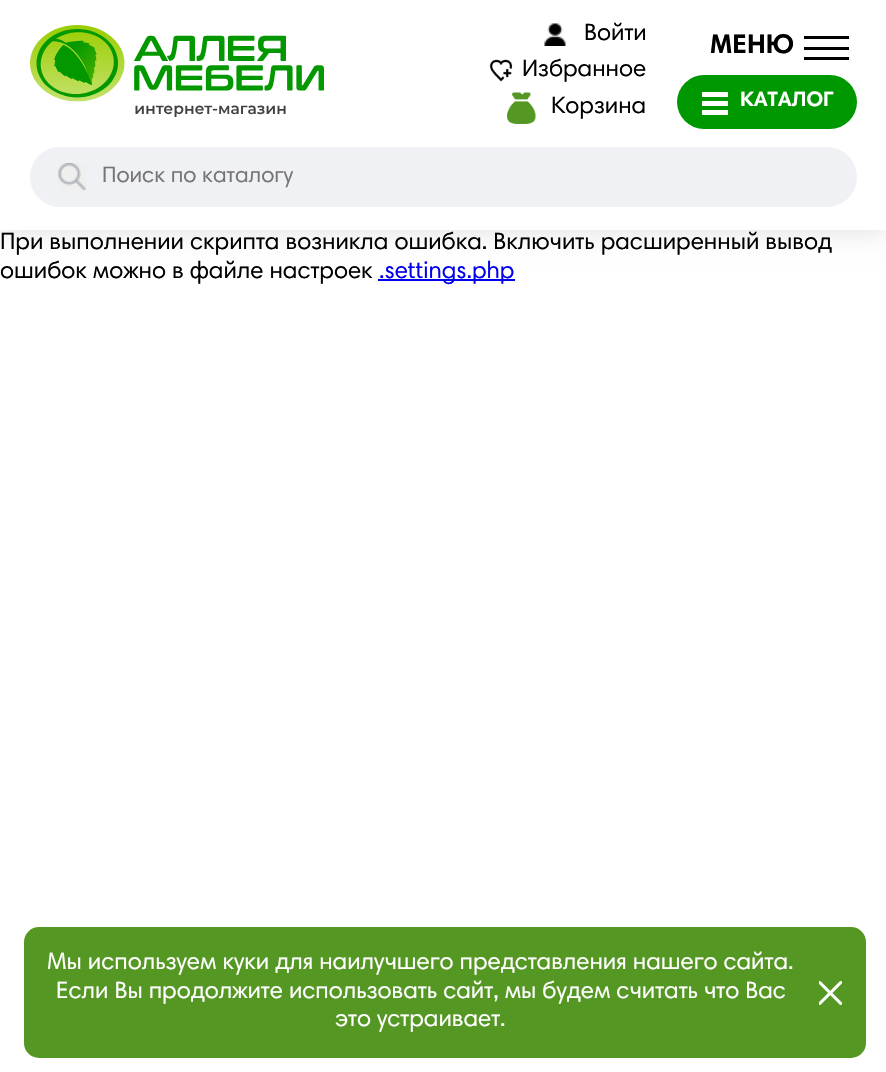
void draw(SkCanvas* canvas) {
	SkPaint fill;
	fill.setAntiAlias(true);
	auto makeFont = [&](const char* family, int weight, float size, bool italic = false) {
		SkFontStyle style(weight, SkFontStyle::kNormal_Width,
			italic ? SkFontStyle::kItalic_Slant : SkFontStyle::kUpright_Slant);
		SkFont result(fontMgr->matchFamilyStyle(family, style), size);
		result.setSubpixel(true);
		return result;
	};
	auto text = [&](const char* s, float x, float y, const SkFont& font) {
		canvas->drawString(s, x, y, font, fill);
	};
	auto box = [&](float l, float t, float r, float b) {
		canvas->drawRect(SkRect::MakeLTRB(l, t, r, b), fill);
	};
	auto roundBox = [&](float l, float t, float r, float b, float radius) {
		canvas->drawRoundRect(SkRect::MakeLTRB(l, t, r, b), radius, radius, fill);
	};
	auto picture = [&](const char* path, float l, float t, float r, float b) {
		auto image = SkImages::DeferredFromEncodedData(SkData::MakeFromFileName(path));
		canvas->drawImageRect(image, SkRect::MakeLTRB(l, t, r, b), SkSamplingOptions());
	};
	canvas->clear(0xFFFFFFFF);
	fill.setColor(0x1A000000);
	fill.setMaskFilter(SkMaskFilter::MakeBlur(kNormal_SkBlurStyle, 11));
	canvas->drawRect(SkRect::MakeLTRB(0, -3, 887, 234), fill);
	fill.setMaskFilter(nullptr);
	fill.setColor(0xFFFFFFFF);
	box(0, 0, 886, 230);
	picture("image0.png", 30, 25, 324, 117);
	picture("image1.png", 544, 23, 566, 46);
	picture("image2.png", 489, 59, 513, 82);
	picture("image3.png", 507, 92, 536, 124);
	fill.setColor(0xFF000000);
	box(804, 36, 849, 39);
	box(804, 47, 849, 50);
	box(804, 57, 849, 60);
	fill.setColor(0xFF009800);
	roundBox(677, 75, 857, 129, 27);
	fill.setColor(0xFFFFFFFF);
	box(702, 92, 728, 97);
	box(702, 101, 728, 106);
	box(702, 110, 728, 115);
	fill.setColor(0xFFF0F1F4);
	roundBox(30, 147, 857, 207, 30);
	fill.setColor(0xFFEFEFEF);
	box(59, 164, 86, 191);
	picture("image4.png", 58, 163, 86, 190);
	fill.setColor(0xFF0000EE);
	box(378, 279, 515, 281);
	fill.setColor(0xFF559723);
	roundBox(24, 927, 866, 1058, 15);
	picture("image5.png", 819, 981, 842, 1005);
	auto font1 = makeFont("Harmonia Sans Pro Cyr", 400, 24);
	fill.setColor(0xFF000000);
	text("Войти", 584, 40, font1);
	text("Избранное", 522, 76, font1);
	text("Корзина", 551, 113, font1);
	auto font2 = makeFont("Harmonia Sans Pro Cyr", 700, 27);
	text("МЕНЮ", 710, 53, font2);
	auto font3 = makeFont("Harmonia Sans Pro Cyr", 700, 21);
	fill.setColor(0xFFFFFFFF);
	text("КАТАЛОГ", 740, 106, font3);
	auto font4 = makeFont("Harmonia Sans Pro Cyr", 400, 22.5f);
	fill.setColor(0xFF757575);
	text("Поиск по каталогу", 102, 182, font4);
	fill.setColor(0xFF000000);
	text("При выполнении скрипта возникла ошибка. Включить расширенный вывод", 0, 249, font1);
	text("ошибок можно в файле настроек", 0, 278, font1);
	fill.setColor(0xFF0000EE);
	text(".settings.php", 379, 278, font1);
	fill.setColor(0xFFFFFFFF);
	text("Мы используем куки для наилучшего представления нашего сайта.", 47, 969, font1);
	text("Если Вы продолжите использовать сайт, мы будем считать что Вас", 56, 998, font1);
	text("это устраивает.", 335, 1026, font1);
}
